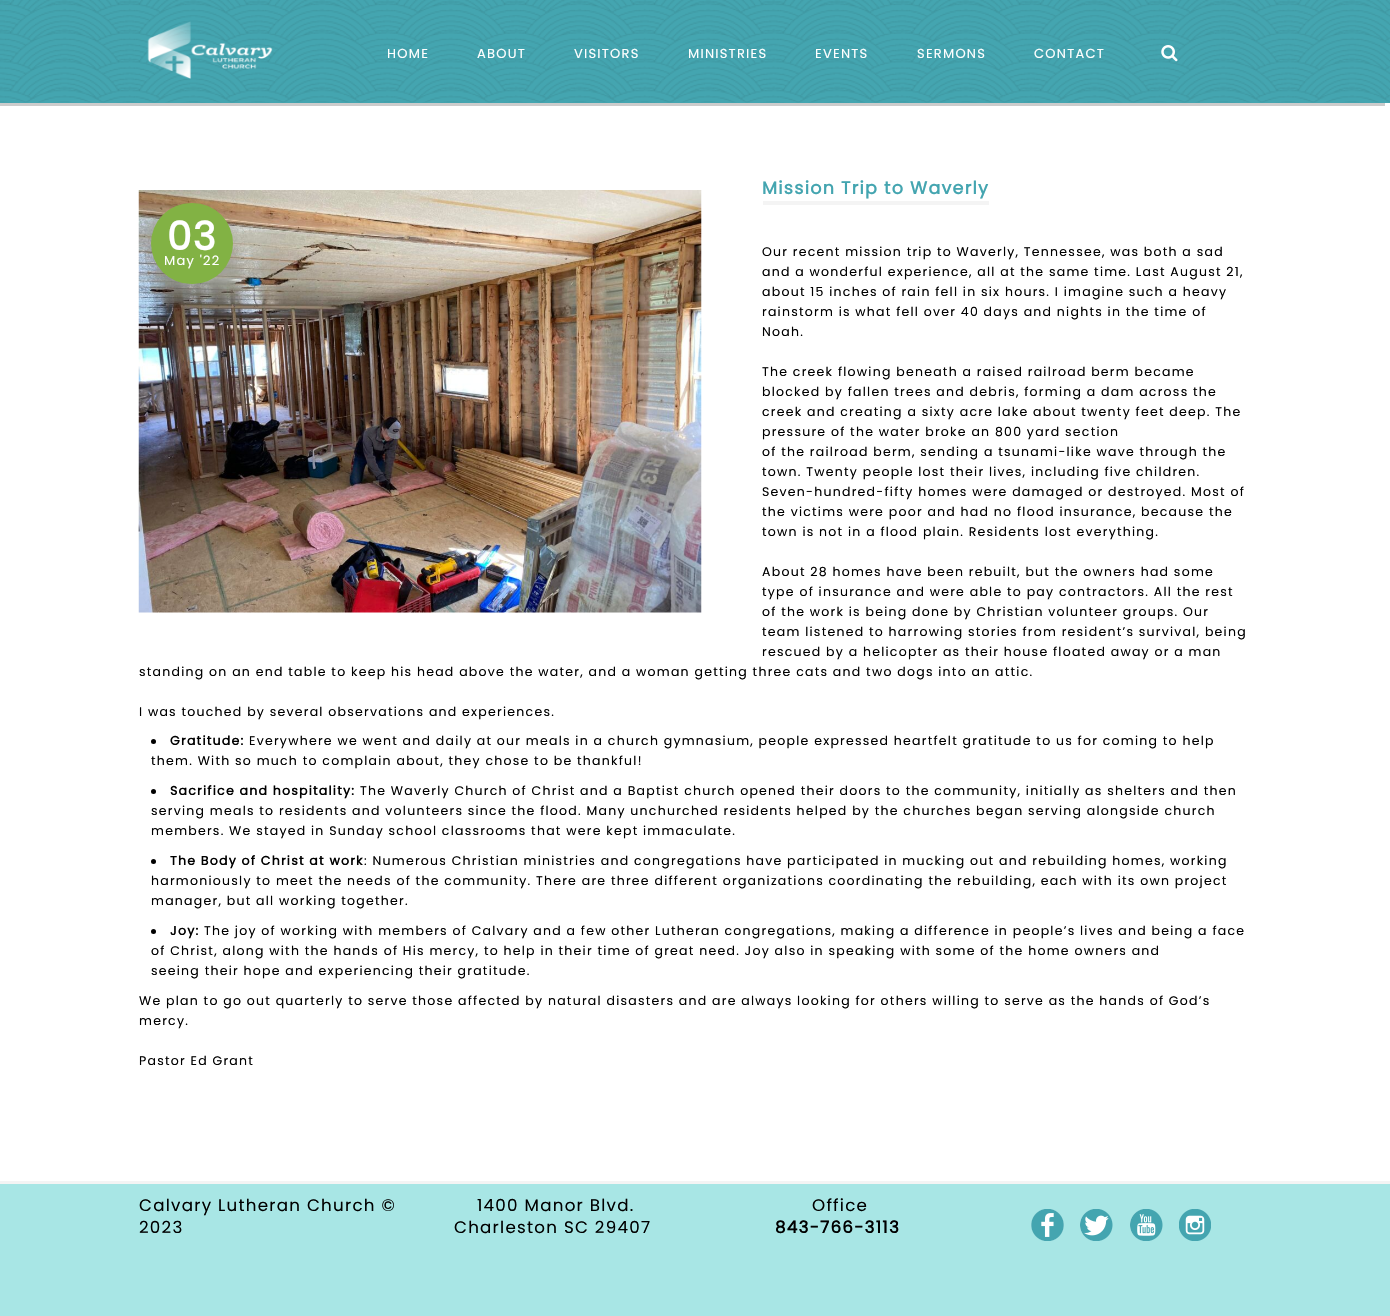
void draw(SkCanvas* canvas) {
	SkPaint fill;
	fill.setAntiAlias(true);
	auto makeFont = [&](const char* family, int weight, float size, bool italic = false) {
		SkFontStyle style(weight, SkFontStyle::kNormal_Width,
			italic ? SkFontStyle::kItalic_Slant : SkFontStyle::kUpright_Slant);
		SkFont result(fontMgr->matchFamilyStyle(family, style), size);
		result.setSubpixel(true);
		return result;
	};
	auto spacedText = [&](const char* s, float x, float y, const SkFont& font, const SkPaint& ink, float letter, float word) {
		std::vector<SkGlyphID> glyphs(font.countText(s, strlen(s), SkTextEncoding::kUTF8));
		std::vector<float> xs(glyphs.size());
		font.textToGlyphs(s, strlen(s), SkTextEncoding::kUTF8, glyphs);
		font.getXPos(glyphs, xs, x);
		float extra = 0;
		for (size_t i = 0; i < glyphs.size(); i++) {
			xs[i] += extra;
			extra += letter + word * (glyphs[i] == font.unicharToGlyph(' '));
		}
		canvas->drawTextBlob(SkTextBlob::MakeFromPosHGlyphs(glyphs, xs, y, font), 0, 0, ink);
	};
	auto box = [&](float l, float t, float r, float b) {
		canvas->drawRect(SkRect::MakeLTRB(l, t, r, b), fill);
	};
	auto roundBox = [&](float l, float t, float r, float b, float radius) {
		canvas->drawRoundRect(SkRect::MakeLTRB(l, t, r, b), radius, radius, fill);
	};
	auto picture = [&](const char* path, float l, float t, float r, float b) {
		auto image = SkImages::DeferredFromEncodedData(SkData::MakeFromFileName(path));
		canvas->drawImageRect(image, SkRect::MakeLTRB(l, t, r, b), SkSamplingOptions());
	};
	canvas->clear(0xFFFFFFFF);
	fill.setColor(0xFFCCCCCC);
	canvas->drawPath(SkPathBuilder().moveTo(-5, 4).lineTo(-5, 106).lineTo(1385, 106).lineTo(1385, 102).lineTo(0, 102).lineTo(0, 4).close().detach(), fill);
	fill.setColor(0xFF44A5B0);
	box(0, 0, 1390, 103);
	picture("image0.png", 0, 0, 1390, 103);
	picture("image1.png", 147, 21, 273, 79);
	picture("image2.png", 1161, 45, 1178, 62);
	fill.setColor(0xFFF4F4F4);
	box(763, 201, 989, 205);
	picture("image3.png", 138, 190, 702, 613);
	fill.setColor(0xFF82B244);
	roundBox(151, 203, 233, 284, 40.5f);
	fill.setColor(0xFF000000);
	canvas->drawCircle(153.5f, 741.5f, 2.5f, fill);
	canvas->drawCircle(153.5f, 791.5f, 2.5f, fill);
	canvas->drawCircle(153.5f, 861.5f, 2.5f, fill);
	canvas->drawCircle(153.5f, 931.5f, 2.5f, fill);
	fill.setColor(0xFFF4F4F4);
	box(0, 1181, 1390, 1184);
	fill.setColor(0xFFA8E6E5);
	box(0, 1184, 1390, 1316);
	picture("image4.png", 1031, 1209, 1064, 1241);
	picture("image5.png", 1080, 1209, 1113, 1241);
	picture("image6.png", 1130, 1209, 1163, 1241);
	picture("image7.png", 1179, 1209, 1211, 1241);
	auto font1 = makeFont("Poppins", 400, 13);
	fill.setColor(0xFFFFFFFF);
	spacedText("HOME", 387, 58, font1, fill, 1.25f, 0);
	spacedText("ABOUT", 477, 58, font1, fill, 1.25f, 0);
	spacedText("VISITORS", 574, 58, font1, fill, 1.25f, 0);
	spacedText("MINISTRIES", 688, 58, font1, fill, 1.25f, 0);
	spacedText("EVENTS", 815, 58, font1, fill, 1.25f, 0);
	spacedText("SERMONS", 917, 58, font1, fill, 1.25f, 0);
	spacedText("CONTACT", 1034, 58, font1, fill, 1.25f, 0);
	auto font2 = makeFont("Poppins", 700, 17.5f);
	fill.setColor(0xFF44A5B0);
	spacedText("Mission Trip to Waverly", 762, 194, font2, fill, 1.25f, 0);
	auto font3 = makeFont("Poppins", 700, 39);
	fill.setColor(0xFFFFFFFF);
	spacedText("03", 167, 250, font3, fill, 1.25f, 0);
	spacedText("May '22", 164, 265, font1, fill, 1.25f, 0);
	auto font4 = makeFont("Poppins", 400, 12.5f);
	fill.setColor(0xFF000000);
	spacedText("Our recent mission trip to Waverly, Tennessee, was both a sad", 762, 256, font4, fill, 1.25f, 0);
	spacedText("and a wonderful experience, all at the same time. Last August 21,", 762, 276, font4, fill, 1.25f, 0);
	spacedText("about 15 inches of rain fell in six hours. I imagine such a heavy", 762, 296, font4, fill, 1.25f, 0);
	spacedText("rainstorm is what fell over 40 days and nights in the time of", 762, 316, font4, fill, 1.25f, 0);
	spacedText("Noah.", 762, 336, font4, fill, 1.25f, 0);
	spacedText("The creek flowing beneath a raised railroad berm became", 762, 376, font4, fill, 1.25f, 0);
	spacedText("blocked by fallen trees and debris, forming a dam across the", 762, 396, font4, fill, 1.25f, 0);
	spacedText("creek and creating a sixty acre lake about twenty feet deep. The", 762, 416, font4, fill, 1.25f, 0);
	spacedText("pressure of the water broke an 800 yard section", 762, 436, font4, fill, 1.25f, 0);
	spacedText("of the railroad berm, sending a tsunami-like wave through the", 762, 456, font4, fill, 1.25f, 0);
	spacedText("town. Twenty people lost their lives, including five children.", 762, 476, font4, fill, 1.25f, 0);
	spacedText("Seven-hundred-fifty homes were damaged or destroyed. Most of", 762, 496, font4, fill, 1.25f, 0);
	spacedText("the victims were poor and had no flood insurance, because the", 762, 516, font4, fill, 1.25f, 0);
	spacedText("town is not in a flood plain. Residents lost everything.", 762, 536, font4, fill, 1.25f, 0);
	spacedText("About 28 homes have been rebuilt, but the owners had some", 762, 576, font4, fill, 1.25f, 0);
	spacedText("type of insurance and were able to pay contractors. All the rest", 762, 596, font4, fill, 1.25f, 0);
	spacedText("of the work is being done by Christian volunteer groups. Our", 762, 616, font4, fill, 1.25f, 0);
	spacedText("team listened to harrowing stories from resident’s survival, being", 762, 636, font4, fill, 1.25f, 0);
	spacedText("rescued by a helicopter as their house floated away or a man", 762, 656, font4, fill, 1.25f, 0);
	spacedText("standing on an end table to keep his head above the water, and a woman getting three cats and two dogs into an attic.", 139, 676, font4, fill, 1.25f, 0);
	spacedText("I was touched by several observations and experiences.", 139, 716, font4, fill, 1.25f, 0);
	auto font5 = makeFont("Poppins", 700, 12.5f);
	spacedText("Gratitude:", 170, 745, font5, fill, 1.25f, 0);
	spacedText("Everywhere we went and daily at our meals in a church gymnasium, people expressed heartfelt gratitude to us for coming to help", 249, 745, font4, fill, 1.25f, 0);
	spacedText("them. With so much to complain about, they chose to be thankful!", 151, 765, font4, fill, 1.25f, 0);
	spacedText("Sacrifice and hospitality:", 170, 795, font5, fill, 1.25f, 0);
	spacedText("The Waverly Church of Christ and a Baptist church opened their doors to the community, initially as shelters and then", 360, 795, font4, fill, 1.25f, 0);
	spacedText("serving meals to residents and volunteers since the flood. Many unchurched residents helped by the churches began serving alongside church", 151, 815, font4, fill, 1.25f, 0);
	spacedText("members. We stayed in Sunday school classrooms that were kept immaculate.", 151, 835, font4, fill, 1.25f, 0);
	spacedText("The Body of Christ at work", 170, 865, font5, fill, 1.25f, 0);
	spacedText(": Numerous Christian ministries and congregations have participated in mucking out and rebuilding homes, working", 364, 865, font4, fill, 1.25f, 0);
	spacedText("harmoniously to meet the needs of the community. There are three different organizations coordinating the rebuilding, each with its own project", 151, 885, font4, fill, 1.25f, 0);
	spacedText("manager, but all working together.", 151, 905, font4, fill, 1.25f, 0);
	spacedText("Joy:", 170, 935, font5, fill, 1.25f, 0);
	spacedText("The joy of working with members of Calvary and a few other Lutheran congregations, making a difference in people’s lives and being a face", 204, 935, font4, fill, 1.25f, 0);
	spacedText("of Christ, along with the hands of His mercy, to help in their time of great need. Joy also in speaking with some of the home owners and", 151, 955, font4, fill, 1.25f, 0);
	spacedText("seeing their hope and experiencing their gratitude.", 151, 975, font4, fill, 1.25f, 0);
	spacedText("We plan to go out quarterly to serve those affected by natural disasters and are always looking for others willing to serve as the hands of God’s", 139, 1005, font4, fill, 1.25f, 0);
	spacedText("mercy.", 139, 1025, font4, fill, 1.25f, 0);
	spacedText("Pastor Ed Grant", 139, 1065, font4, fill, 1.25f, 0);
	auto font6 = makeFont("Poppins", 400, 16.7f);
	spacedText("Calvary Lutheran Church ©", 139, 1211, font6, fill, 1.25f, 0);
	spacedText("2023", 139, 1233, font6, fill, 1.25f, 0);
	spacedText("1400 Manor Blvd.", 477, 1211, font6, fill, 1.25f, 0);
	spacedText("Charleston SC 29407", 454, 1233, font6, fill, 1.25f, 0);
	spacedText("Office", 812, 1211, font6, fill, 1.25f, 0);
	auto font7 = makeFont("Poppins", 700, 16.7f);
	spacedText("843-766-3113", 775, 1233, font7, fill, 1.25f, 0);
}
